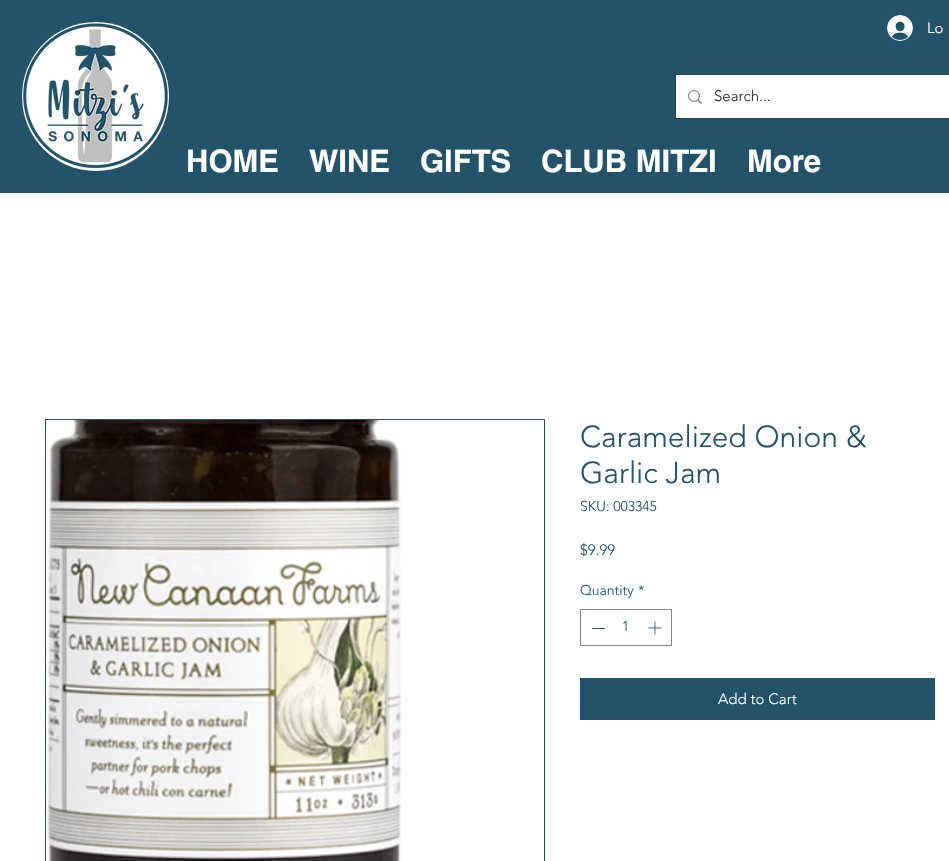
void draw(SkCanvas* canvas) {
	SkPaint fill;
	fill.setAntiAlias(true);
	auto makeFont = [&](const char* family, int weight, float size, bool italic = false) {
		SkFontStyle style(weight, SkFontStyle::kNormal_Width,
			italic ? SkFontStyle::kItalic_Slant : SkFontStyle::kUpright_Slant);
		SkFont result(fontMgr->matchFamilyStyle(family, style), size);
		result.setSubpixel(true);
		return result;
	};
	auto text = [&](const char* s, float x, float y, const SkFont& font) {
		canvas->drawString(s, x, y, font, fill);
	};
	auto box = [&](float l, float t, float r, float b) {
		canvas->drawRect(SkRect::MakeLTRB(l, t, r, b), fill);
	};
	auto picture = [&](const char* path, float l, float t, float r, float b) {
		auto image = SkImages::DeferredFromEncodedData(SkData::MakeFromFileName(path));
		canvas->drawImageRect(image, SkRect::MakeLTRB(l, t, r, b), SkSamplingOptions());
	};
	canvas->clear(0xFFFFFFFF);
	fill.setColor(0xFF23536A);
	box(0, 0, 949, 193);
	fill.setColor(0xFFFFFFFF);
	canvas->drawPath(SkPathBuilder().moveTo(169, 96).cubicTo(169, 138, 136, 171, 96, 171).cubicTo(55, 171, 22, 138, 22, 96).cubicTo(22, 55, 55, 22, 96, 22).cubicTo(136, 22, 169, 55, 169, 96).close().detach(), fill);
	picture("image0.png", 887, 15, 913, 41);
	picture("image1.png", 23, 23, 168, 169);
	fill.setStyle(SkPaint::kStroke_Style);
	fill.setStrokeWidth(1);
	fill.setColor(0xFF2A3D47);
	canvas->drawRect(SkRect::MakeLTRB(675.5f, 74.5f, 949.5f, 118.5f), fill);
	fill.setStyle(SkPaint::kFill_Style);
	fill.setColor(0xFFFFFFFF);
	box(676, 75, 949, 118);
	picture("image2.png", 688, 90, 702, 104);
	fill.setStyle(SkPaint::kStroke_Style);
	fill.setColor(0xFF23536A);
	canvas->drawRect(SkRect::MakeLTRB(45.5f, 419.5f, 544.5f, 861.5f), fill);
	picture("image3.png", 46, 420, 402, 861);
	fill.setColor(0xFF828283);
	canvas->drawRect(SkRect::MakeLTRB(580.5f, 609.5f, 671.5f, 645.5f), fill);
	fill.setStyle(SkPaint::kFill_Style);
	fill.setColor(0xFF23536A);
	box(592, 628, 605, 629);
	picture("image4.png", 648, 621, 662, 635);
	box(580, 678, 935, 720);
	auto font1 = makeFont("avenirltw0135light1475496", 300, 15);
	fill.setColor(0xFFFFFFFF);
	text("Lo", 927, 33, font1);
	fill.setColor(0xFF2F2F30);
	text("Search...", 714, 101, font1);
	auto font2 = makeFont("helvetica", 700, 31);
	fill.setColor(0xFFFFFFFF);
	text("HOME", 186, 172, font2);
	text("WINE", 309, 172, font2);
	text("GIFTS", 420, 172, font2);
	text("CLUB MITZI", 541, 172, font2);
	text("More", 747, 172, font2);
	auto font3 = makeFont("avenirltw0135light1475496", 300, 30);
	fill.setColor(0xFF23536A);
	text("Caramelized Onion &", 580, 447, font3);
	text("Garlic Jam", 580, 483, font3);
	auto font4 = makeFont("avenirltw0135light1475496", 300, 14);
	text("SKU: 003345", 580, 511, font4);
	text("$9.99", 580, 555, font1);
	text("Quantity", 580, 595, font4);
	text("*", 638, 595, font4);
	text("1", 622, 631, font4);
	fill.setColor(0xFFFFFFFF);
	text("Add to Cart", 718, 704, font1);
}
